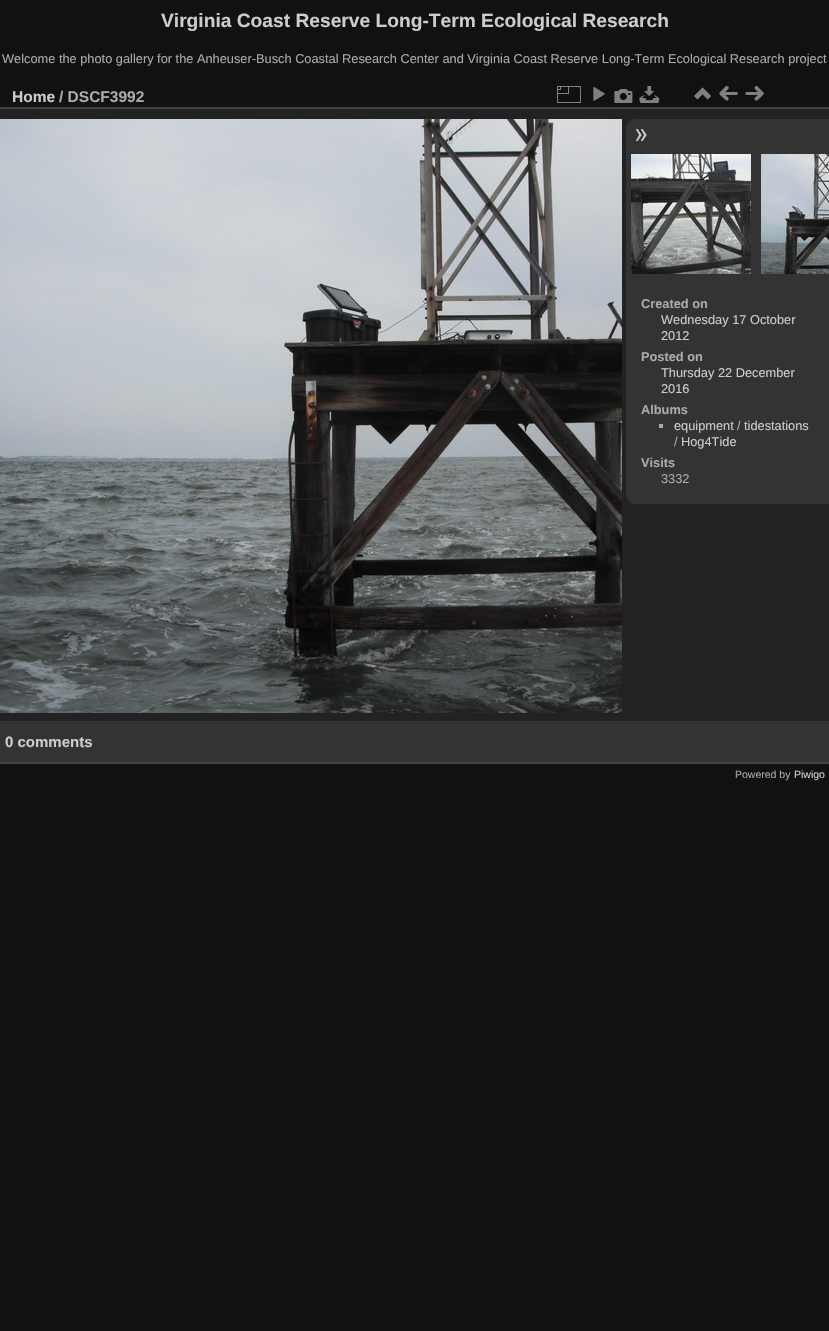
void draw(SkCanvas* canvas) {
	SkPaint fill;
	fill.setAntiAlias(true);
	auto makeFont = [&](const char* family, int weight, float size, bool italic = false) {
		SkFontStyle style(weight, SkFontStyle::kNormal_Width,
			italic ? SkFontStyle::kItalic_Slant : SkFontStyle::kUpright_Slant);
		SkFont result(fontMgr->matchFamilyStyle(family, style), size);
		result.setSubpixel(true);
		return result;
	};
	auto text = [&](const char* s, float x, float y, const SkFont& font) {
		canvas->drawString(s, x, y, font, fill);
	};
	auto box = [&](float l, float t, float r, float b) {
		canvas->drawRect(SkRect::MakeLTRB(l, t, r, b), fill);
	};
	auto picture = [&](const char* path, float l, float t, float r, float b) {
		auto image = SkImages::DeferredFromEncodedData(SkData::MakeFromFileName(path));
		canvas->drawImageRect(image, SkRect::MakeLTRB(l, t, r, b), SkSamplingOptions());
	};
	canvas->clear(0xFF111111);
	fill.setColor(0xFF222222);
	box(0, 109, 829, 721);
	fill.setColor(0xFF444444);
	box(0, 762, 829, 764);
	box(0, 107, 829, 109);
	picture("image0.png", 557, 86, 581, 103);
	picture("image1.png", 593, 87, 605, 101);
	picture("image2.png", 614, 89, 633, 103);
	picture("image3.png", 639, 86, 660, 103);
	picture("image4.png", 694, 87, 711, 100);
	picture("image5.png", 719, 86, 738, 101);
	picture("image6.png", 745, 86, 764, 101);
	picture("image7.png", 0, 119, 622, 713);
	fill.setColor(0xFF333333);
	canvas->drawPath(SkPathBuilder().moveTo(636, 119).lineTo(829, 119).lineTo(829, 504).lineTo(636, 504).cubicTo(630.5f, 504, 626, 499.5f, 626, 494).lineTo(626, 129).cubicTo(626, 123.5f, 630.5f, 119, 636, 119).close().detach(), fill);
	picture("image8.png", 635, 129, 647, 141);
	picture("image9.png", 631, 154, 751, 274);
	picture("image10.png", 761, 154, 829, 274);
	fill.setColor(0xFFAAAAAA);
	box(659, 424, 663, 428);
	fill.setColor(0xFF333333);
	box(0, 721, 829, 762);
	auto font1 = makeFont("Liberation Sans", 700, 19.2f);
	fill.setColor(0xFFCCCCCC);
	text("Virginia Coast Reserve Long-Term Ecological Research", 161, 27, font1);
	auto font2 = makeFont("Liberation Sans", 400, 12.8f);
	fill.setColor(0xFFAAAAAA);
	text("Welcome the photo gallery for the Anheuser-Busch Coastal Research Center and Virginia Coast Reserve Long-Term Ecological Research project", 2, 63, font2);
	auto font3 = makeFont("Liberation Sans", 700, 15.5f);
	fill.setColor(0xFFCCCCCC);
	text("Home", 12, 102, font3);
	fill.setColor(0xFFAAAAAA);
	text("/ DSCF3992", 59, 102, font3);
	auto font4 = makeFont("Liberation Sans", 700, 12.8f);
	text("Created on", 641, 308, font4);
	fill.setColor(0xFFCCCCCC);
	text("Wednesday 17 October", 661, 324, font2);
	text("2012", 661, 340, font2);
	fill.setColor(0xFFAAAAAA);
	text("Posted on", 641, 361, font4);
	fill.setColor(0xFFCCCCCC);
	text("Thursday 22 December", 661, 377, font2);
	text("2016", 661, 393, font2);
	fill.setColor(0xFFAAAAAA);
	text("Albums", 641, 414, font4);
	fill.setColor(0xFFCCCCCC);
	text("equipment", 674, 430, font2);
	fill.setColor(0xFFAAAAAA);
	text("/", 737, 430, font2);
	fill.setColor(0xFFCCCCCC);
	text("tidestations", 744, 430, font2);
	fill.setColor(0xFFAAAAAA);
	text("/", 674, 446, font2);
	fill.setColor(0xFFCCCCCC);
	text("Hog4Tide", 681, 446, font2);
	fill.setColor(0xFFAAAAAA);
	text("Visits", 641, 467, font4);
	text("3332", 661, 483, font2);
	auto font5 = makeFont("Liberation Sans", 700, 15);
	fill.setColor(0xFFCCCCCC);
	text("0 comments", 5, 747, font5);
	auto font6 = makeFont("Liberation Sans", 400, 10.5f);
	fill.setColor(0xFFAAAAAA);
	text("Powered by", 735, 778, font6);
	fill.setColor(0xFFCCCCCC);
	text("Piwigo", 794, 778, font6);
}
